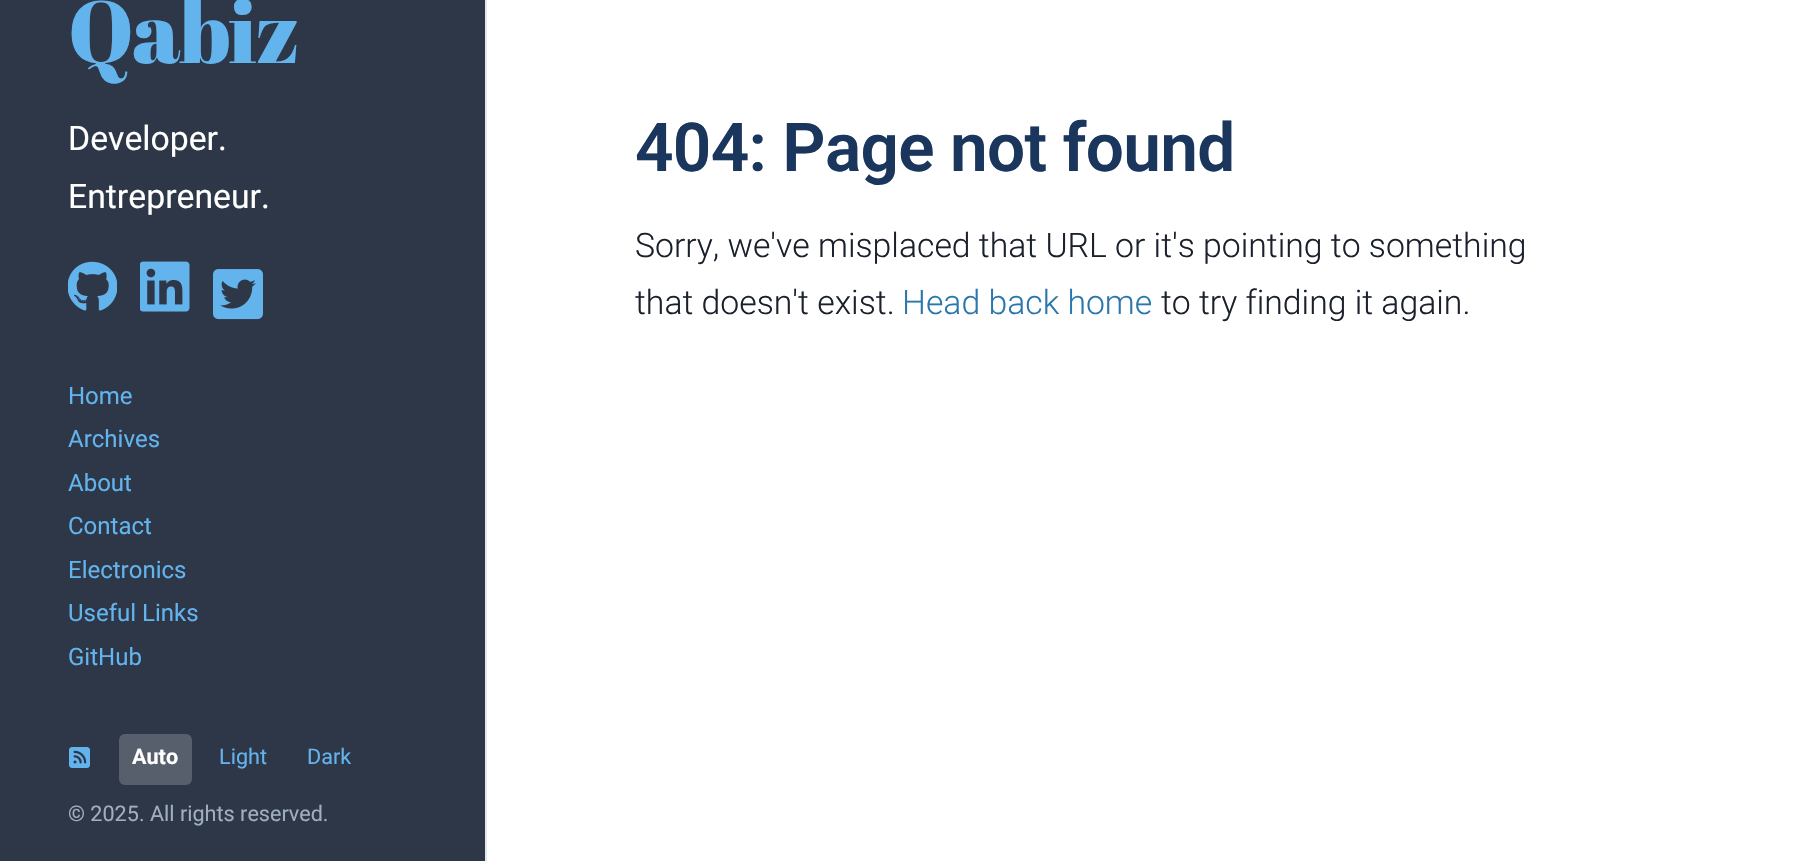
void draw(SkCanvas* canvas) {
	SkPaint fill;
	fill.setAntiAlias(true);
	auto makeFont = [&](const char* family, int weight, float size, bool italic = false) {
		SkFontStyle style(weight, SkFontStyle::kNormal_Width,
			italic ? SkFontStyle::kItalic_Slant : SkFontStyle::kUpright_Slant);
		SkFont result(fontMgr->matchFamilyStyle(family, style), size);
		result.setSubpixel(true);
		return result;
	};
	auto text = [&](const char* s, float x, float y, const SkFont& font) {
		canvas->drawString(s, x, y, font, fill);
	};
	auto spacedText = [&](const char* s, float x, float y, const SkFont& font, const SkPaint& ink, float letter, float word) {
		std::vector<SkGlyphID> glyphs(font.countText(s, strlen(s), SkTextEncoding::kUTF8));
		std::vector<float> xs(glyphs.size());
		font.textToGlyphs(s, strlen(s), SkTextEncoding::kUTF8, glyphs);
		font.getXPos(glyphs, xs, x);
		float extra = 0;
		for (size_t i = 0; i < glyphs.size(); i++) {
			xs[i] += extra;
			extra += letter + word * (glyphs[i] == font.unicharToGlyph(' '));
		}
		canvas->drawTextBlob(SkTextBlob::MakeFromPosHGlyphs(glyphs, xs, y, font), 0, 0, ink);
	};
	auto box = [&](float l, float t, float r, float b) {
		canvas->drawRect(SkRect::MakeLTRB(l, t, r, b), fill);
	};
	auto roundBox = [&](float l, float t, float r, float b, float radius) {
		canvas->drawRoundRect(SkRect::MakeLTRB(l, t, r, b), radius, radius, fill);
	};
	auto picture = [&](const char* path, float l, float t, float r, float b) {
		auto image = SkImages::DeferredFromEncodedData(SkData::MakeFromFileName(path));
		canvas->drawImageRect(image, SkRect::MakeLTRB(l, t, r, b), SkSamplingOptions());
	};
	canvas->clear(0xFFFFFFFF);
	fill.setColor(0xFF2D3748);
	box(0, 0, 485, 861);
	fill.setColor(0xFFE2E8F0);
	box(485, 0, 487, 861);
	picture("image0.png", 68, 261, 117, 311);
	picture("image1.png", 140, 261, 190, 312);
	picture("image2.png", 213, 269, 263, 320);
	picture("image3.png", 69, 747, 90, 768);
	fill.setColor(0xFF575F6D);
	roundBox(119, 734, 192, 785, 6);
	auto font1 = makeFont("Abril Fatface", 400, 88);
	fill.setColor(0xFF63B3ED);
	spacedText("Qabiz", 68, 63, font1, fill, -1.75f, 0);
	auto font2 = makeFont("Roboto", 400, 33.75f);
	fill.setColor(0xFFFFFFFF);
	text("Developer.", 68, 150, font2);
	text("Entrepreneur.", 68, 208, font2);
	auto font3 = makeFont("Roboto", 400, 24);
	fill.setColor(0xFF63B3ED);
	text("Home", 68, 404, font3);
	text("Archives", 68, 447, font3);
	text("About", 68, 491, font3);
	text("Contact", 68, 534, font3);
	text("Electronics", 68, 578, font3);
	text("Useful Links", 68, 621, font3);
	text("GitHub", 68, 665, font3);
	auto font4 = makeFont("Roboto", 700, 21.6f);
	fill.setColor(0xFFFFFFFF);
	text("Auto", 132, 764, font4);
	auto font5 = makeFont("Roboto", 400, 21.6f);
	fill.setColor(0xFF63B3ED);
	text("Light", 219, 764, font5);
	text("Dark", 307, 764, font5);
	fill.setColor(0xFFA0AEC0);
	text("© 2025. All rights reserved.", 68, 821, font5);
	auto font6 = makeFont("Roboto", 600, 67.5f);
	fill.setColor(0xFF1A365D);
	spacedText("404: Page not found", 635, 171, font6, fill, -0.7f, 0);
	auto font7 = makeFont("Roboto", 300, 33.75f);
	fill.setColor(0xFF1A202C);
	text("Sorry, we've misplaced that URL or it's pointing to something", 635, 257, font7);
	text("that doesn't exist.", 635, 314, font7);
	fill.setColor(0xFF2B77AD);
	text("Head back home", 902, 314, font7);
	fill.setColor(0xFF1A202C);
	text("to try finding it again.", 1161, 314, font7);
}
